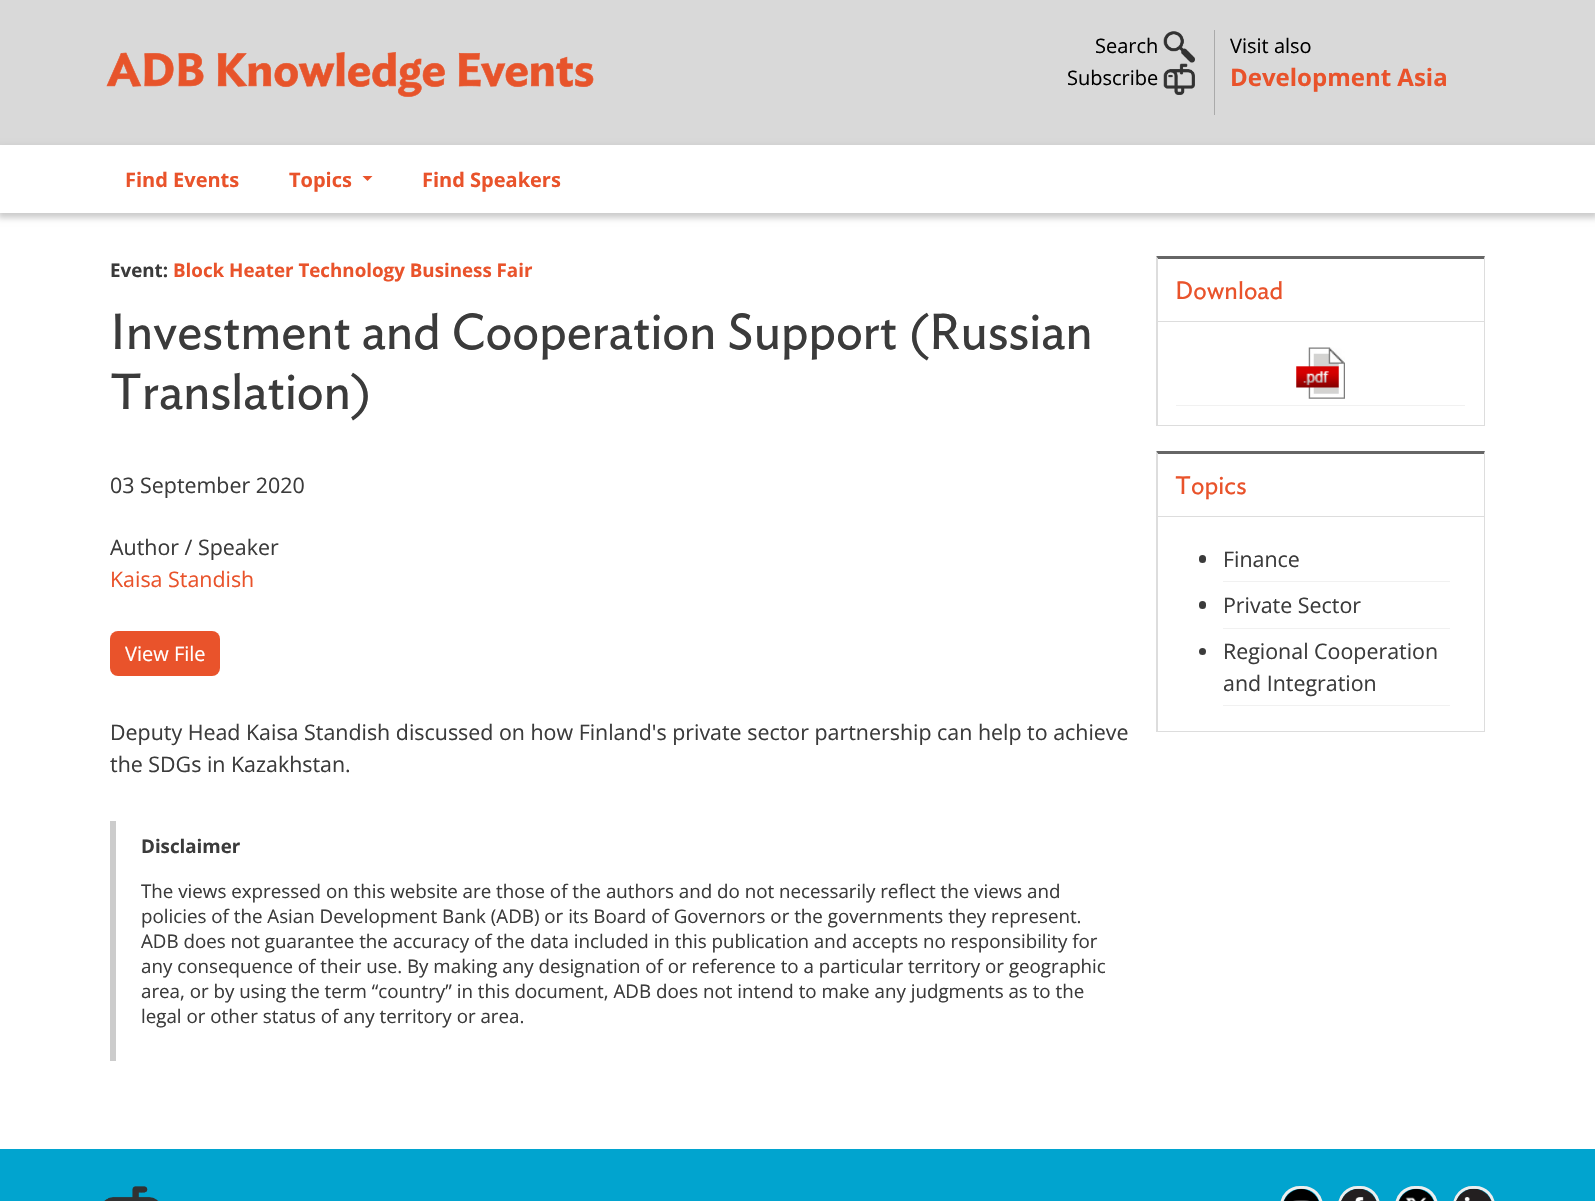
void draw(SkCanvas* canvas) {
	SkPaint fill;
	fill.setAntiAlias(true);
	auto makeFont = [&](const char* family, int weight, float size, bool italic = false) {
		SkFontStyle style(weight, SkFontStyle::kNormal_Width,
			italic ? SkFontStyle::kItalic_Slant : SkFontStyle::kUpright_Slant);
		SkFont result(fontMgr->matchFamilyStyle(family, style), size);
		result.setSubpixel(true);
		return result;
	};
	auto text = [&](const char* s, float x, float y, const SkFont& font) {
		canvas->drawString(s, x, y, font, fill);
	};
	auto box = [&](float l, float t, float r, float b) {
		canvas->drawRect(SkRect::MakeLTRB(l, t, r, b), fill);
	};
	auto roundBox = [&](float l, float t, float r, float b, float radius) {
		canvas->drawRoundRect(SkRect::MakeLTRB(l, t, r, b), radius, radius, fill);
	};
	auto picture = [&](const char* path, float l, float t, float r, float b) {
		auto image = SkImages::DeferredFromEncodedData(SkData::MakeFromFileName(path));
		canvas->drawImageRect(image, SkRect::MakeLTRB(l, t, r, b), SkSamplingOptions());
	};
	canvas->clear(0xFFFFFFFF);
	fill.setColor(0xFFD9D9D9);
	box(0, 0, 1595, 145);
	picture("image0.png", 106, 52, 594, 97);
	fill.setColor(0xFFAAAAAA);
	box(1214, 30, 1215, 115);
	picture("image1.png", 1163, 31, 1195, 63);
	picture("image2.png", 1163, 63, 1195, 95);
	fill.setColor(0xFFCCCCCC);
	fill.setMaskFilter(SkMaskFilter::MakeBlur(kNormal_SkBlurStyle, 3));
	canvas->drawRect(SkRect::MakeLTRB(-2, 145, 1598, 218), fill);
	fill.setMaskFilter(nullptr);
	fill.setColor(0xFFFFFFFF);
	box(0, 145, 1595, 213);
	fill.setColor(0xFFE9532B);
	canvas->drawPath(SkPathBuilder().moveTo(362.5f, 176).lineTo(372.5f, 176).lineTo(367.5f, 181).close().detach(), fill);
	roundBox(110, 631, 220, 676, 8);
	fill.setColor(0xFFCCCCCC);
	box(110, 821, 116, 1061);
	fill.setColor(0xFF666666);
	canvas->drawPath(SkPathBuilder().moveTo(1156, 256).lineTo(1485, 256).lineTo(1484, 259).lineTo(1158, 259).close().detach(), fill);
	fill.setColor(0xFFDDDDDD);
	canvas->drawPath(SkPathBuilder().moveTo(1485, 256).lineTo(1485, 426).lineTo(1484, 425).lineTo(1484, 259).close().detach(), fill);
	box(1156, 425, 1485, 426);
	canvas->drawPath(SkPathBuilder().moveTo(1156, 426).lineTo(1156, 256).lineTo(1158, 259).lineTo(1158, 425).close().detach(), fill);
	box(1158, 321, 1484, 322);
	fill.setColor(0xFFF1F1F1);
	box(1176, 405, 1465, 406);
	picture("image3.png", 1296, 347, 1345, 399);
	fill.setColor(0xFF666666);
	canvas->drawPath(SkPathBuilder().moveTo(1156, 451).lineTo(1485, 451).lineTo(1484, 454).lineTo(1158, 454).close().detach(), fill);
	fill.setColor(0xFFDDDDDD);
	canvas->drawPath(SkPathBuilder().moveTo(1485, 451).lineTo(1485, 732).lineTo(1484, 731).lineTo(1484, 454).close().detach(), fill);
	box(1156, 731, 1485, 732);
	canvas->drawPath(SkPathBuilder().moveTo(1156, 732).lineTo(1156, 451).lineTo(1158, 454).lineTo(1158, 731).close().detach(), fill);
	box(1158, 516, 1484, 517);
	fill.setColor(0xFFF1F1F1);
	box(1223, 581, 1450, 582);
	fill.setColor(0xFF3B3B3B);
	roundBox(1199, 555, 1206, 563, 3.5f);
	fill.setColor(0xFFF1F1F1);
	box(1223, 628, 1450, 629);
	fill.setColor(0xFF3B3B3B);
	roundBox(1199, 601, 1206, 609, 3.5f);
	fill.setColor(0xFFF1F1F1);
	box(1223, 705, 1450, 706);
	fill.setColor(0xFF3B3B3B);
	canvas->drawCircle(1202.5f, 651.5f, 3.5f, fill);
	fill.setColor(0xFF01A4CF);
	box(0, 1149, 1595, 1201);
	picture("image4.png", 104, 1186, 159, 1201);
	fill.setStyle(SkPaint::kStroke_Style);
	fill.setStrokeWidth(3);
	fill.setColor(0xFFEEEEEE);
	canvas->drawRoundRect(SkRect::MakeLTRB(1281.5f, 1187.5f, 1321.5f, 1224.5f), 20, 20, fill);
	picture("image5.png", 1283, 1188, 1319, 1201);
	canvas->drawRoundRect(SkRect::MakeLTRB(1339.5f, 1187.5f, 1378.5f, 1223.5f), 19.5f, 19.5f, fill);
	picture("image6.png", 1341, 1188, 1377, 1201);
	canvas->drawRoundRect(SkRect::MakeLTRB(1396.5f, 1187.5f, 1436.5f, 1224.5f), 20, 20, fill);
	picture("image7.png", 1398, 1188, 1434, 1201);
	canvas->drawRoundRect(SkRect::MakeLTRB(1454.5f, 1187.5f, 1493.5f, 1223.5f), 19.5f, 19.5f, fill);
	picture("image8.png", 1456, 1188, 1492, 1201);
	auto font1 = makeFont("Open Sans", 400, 20);
	fill.setStyle(SkPaint::kFill_Style);
	fill.setColor(0xFF000000);
	text("Search", 1095, 53, font1);
	text("Subscribe", 1067, 85, font1);
	text("Visit also", 1230, 53, font1);
	auto font2 = makeFont("Open Sans", 700, 24);
	fill.setColor(0xFFE9532B);
	text("Development Asia", 1230, 86, font2);
	auto font3 = makeFont("Open Sans", 700, 20);
	text("Find Events", 125, 187, font3);
	text("Topics", 289, 187, font3);
	text("Find Speakers", 422, 187, font3);
	auto font4 = makeFont("Open Sans", 700, 18.75f);
	fill.setColor(0xFF3B3B3B);
	text("Event:", 110, 277, font4);
	fill.setColor(0xFFE9532B);
	text("Block Heater Technology Business Fair", 173, 277, font4);
	auto font5 = makeFont("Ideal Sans", 400, 50);
	fill.setColor(0xFF3B3B3B);
	text("Investment and Cooperation Support (Russian", 110, 349, font5);
	text("Translation)", 110, 409, font5);
	auto font6 = makeFont("Open Sans", 400, 21.4f);
	text("03 September 2020", 110, 493, font6);
	text("Author / Speaker", 110, 555, font6);
	fill.setColor(0xFFE9532B);
	text("Kaisa Standish", 110, 587, font6);
	fill.setColor(0xFFFFFFFF);
	text("View File", 125, 661, font1);
	fill.setColor(0xFF3B3B3B);
	text("Deputy Head Kaisa Standish discussed on how Finland's private sector partnership can help to achieve", 110, 740, font6);
	text("the SDGs in Kazakhstan.", 110, 772, font6);
	text("Disclaimer", 141, 853, font4);
	auto font7 = makeFont("Open Sans", 400, 18.75f);
	text("The views expressed on this website are those of the authors and do not necessarily reflect the views and", 141, 898, font7);
	text("policies of the Asian Development Bank (ADB) or its Board of Governors or the governments they represent.", 141, 923, font7);
	text("ADB does not guarantee the accuracy of the data included in this publication and accepts no responsibility for", 141, 948, font7);
	text("any consequence of their use. By making any designation of or reference to a particular territory or geographic", 141, 973, font7);
	text("area, or by using the term “country” in this document, ADB does not intend to make any judgments as to the", 141, 998, font7);
	text("legal or other status of any territory or area.", 141, 1023, font7);
	auto font8 = makeFont("Ideal Sans", 400, 25);
	fill.setColor(0xFFE9532B);
	text("Download", 1175, 299, font8);
	text("Topics", 1175, 494, font8);
	fill.setColor(0xFF3B3B3B);
	text("Finance", 1223, 567, font6);
	text("Private Sector", 1223, 613, font6);
	text("Regional Cooperation", 1223, 659, font6);
	text("and Integration", 1223, 691, font6);
}
